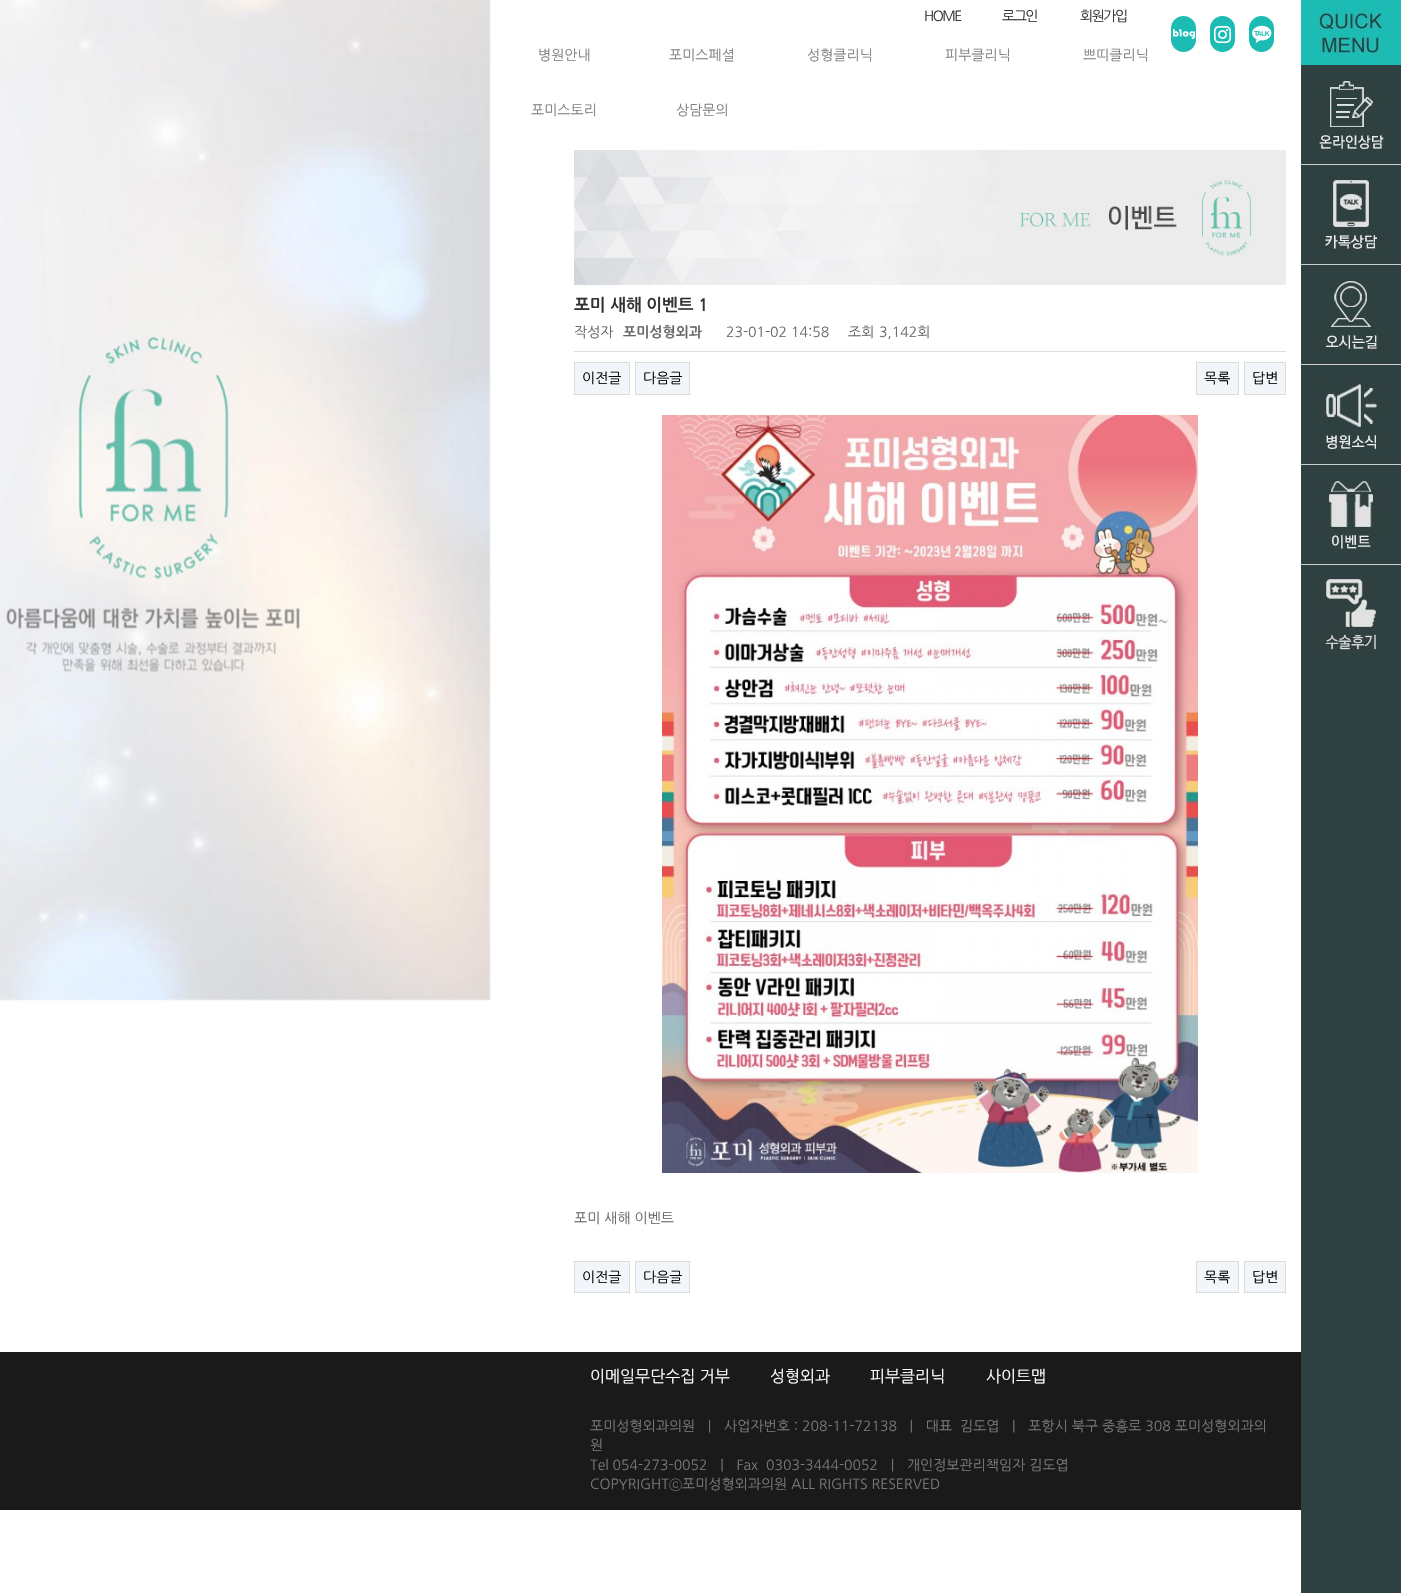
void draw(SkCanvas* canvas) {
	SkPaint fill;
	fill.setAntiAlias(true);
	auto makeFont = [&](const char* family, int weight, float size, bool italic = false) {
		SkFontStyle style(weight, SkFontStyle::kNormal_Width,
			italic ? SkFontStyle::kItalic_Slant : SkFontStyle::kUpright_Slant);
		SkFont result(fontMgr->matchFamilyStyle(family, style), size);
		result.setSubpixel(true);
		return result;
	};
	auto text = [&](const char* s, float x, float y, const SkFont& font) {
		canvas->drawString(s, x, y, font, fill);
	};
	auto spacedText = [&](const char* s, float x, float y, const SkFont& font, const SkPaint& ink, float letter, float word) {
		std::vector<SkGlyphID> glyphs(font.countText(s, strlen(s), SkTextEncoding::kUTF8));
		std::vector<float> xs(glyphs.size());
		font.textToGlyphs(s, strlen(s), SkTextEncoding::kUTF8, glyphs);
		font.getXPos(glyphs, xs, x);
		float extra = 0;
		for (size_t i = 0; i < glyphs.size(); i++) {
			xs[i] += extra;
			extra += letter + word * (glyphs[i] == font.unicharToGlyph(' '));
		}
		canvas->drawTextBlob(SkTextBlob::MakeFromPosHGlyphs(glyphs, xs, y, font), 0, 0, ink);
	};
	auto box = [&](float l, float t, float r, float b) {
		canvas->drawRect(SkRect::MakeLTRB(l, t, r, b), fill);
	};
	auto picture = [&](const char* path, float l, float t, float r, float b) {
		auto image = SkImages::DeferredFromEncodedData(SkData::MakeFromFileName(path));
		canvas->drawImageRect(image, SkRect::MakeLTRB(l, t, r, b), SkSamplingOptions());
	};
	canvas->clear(0xFFFFFFFF);
	picture("image0.png", 0, 0, 491, 1001);
	picture("image1.png", 1171, 16, 1196, 52);
	picture("image2.png", 1210, 16, 1235, 52);
	picture("image3.png", 1249, 16, 1274, 52);
	fill.setColor(0xFF2E4040);
	box(1301, 65, 1401, 1593);
	picture("image4.png", 1301, 0, 1401, 65);
	picture("image5.png", 1301, 81, 1401, 165);
	picture("image6.png", 1301, 175, 1401, 265);
	picture("image7.png", 1301, 281, 1401, 365);
	picture("image8.png", 1301, 381, 1401, 465);
	picture("image9.png", 1301, 481, 1401, 565);
	picture("image10.png", 1325, 579, 1376, 650);
	picture("image11.png", 574, 150, 1286, 285);
	fill.setColor(0xFFDDDDDD);
	box(574, 351, 1286, 352);
	fill.setColor(0xFFF2F5F9);
	canvas->drawRect(SkRect::MakeLTRB(574.5f, 362.5f, 629.5f, 394.5f), fill);
	fill.setStyle(SkPaint::kStroke_Style);
	fill.setStrokeWidth(1);
	fill.setColor(0xFFD9DED9);
	canvas->drawRect(SkRect::MakeLTRB(574.5f, 362.5f, 629.5f, 394.5f), fill);
	fill.setStyle(SkPaint::kFill_Style);
	fill.setColor(0xFFF2F5F9);
	canvas->drawRect(SkRect::MakeLTRB(635.5f, 362.5f, 689.5f, 394.5f), fill);
	fill.setStyle(SkPaint::kStroke_Style);
	fill.setColor(0xFFD9DED9);
	canvas->drawRect(SkRect::MakeLTRB(635.5f, 362.5f, 689.5f, 394.5f), fill);
	fill.setStyle(SkPaint::kFill_Style);
	fill.setColor(0xFFF2F5F9);
	canvas->drawRect(SkRect::MakeLTRB(1196.5f, 362.5f, 1238.5f, 394.5f), fill);
	fill.setStyle(SkPaint::kStroke_Style);
	fill.setColor(0xFFD9DED9);
	canvas->drawRect(SkRect::MakeLTRB(1196.5f, 362.5f, 1238.5f, 394.5f), fill);
	fill.setStyle(SkPaint::kFill_Style);
	fill.setColor(0xFFF2F5F9);
	canvas->drawRect(SkRect::MakeLTRB(1244.5f, 362.5f, 1285.5f, 394.5f), fill);
	fill.setStyle(SkPaint::kStroke_Style);
	fill.setColor(0xFFD9DED9);
	canvas->drawRect(SkRect::MakeLTRB(1244.5f, 362.5f, 1285.5f, 394.5f), fill);
	picture("image12.png", 662, 415, 1198, 1173);
	fill.setStyle(SkPaint::kFill_Style);
	fill.setColor(0xFFF2F5F9);
	canvas->drawRect(SkRect::MakeLTRB(574.5f, 1261.5f, 629.5f, 1292.5f), fill);
	fill.setStyle(SkPaint::kStroke_Style);
	fill.setColor(0xFFD9DED9);
	canvas->drawRect(SkRect::MakeLTRB(574.5f, 1261.5f, 629.5f, 1292.5f), fill);
	fill.setStyle(SkPaint::kFill_Style);
	fill.setColor(0xFFF2F5F9);
	canvas->drawRect(SkRect::MakeLTRB(635.5f, 1261.5f, 689.5f, 1292.5f), fill);
	fill.setStyle(SkPaint::kStroke_Style);
	fill.setColor(0xFFD9DED9);
	canvas->drawRect(SkRect::MakeLTRB(635.5f, 1261.5f, 689.5f, 1292.5f), fill);
	fill.setStyle(SkPaint::kFill_Style);
	fill.setColor(0xFFF2F5F9);
	canvas->drawRect(SkRect::MakeLTRB(1196.5f, 1261.5f, 1238.5f, 1292.5f), fill);
	fill.setStyle(SkPaint::kStroke_Style);
	fill.setColor(0xFFD9DED9);
	canvas->drawRect(SkRect::MakeLTRB(1196.5f, 1261.5f, 1238.5f, 1292.5f), fill);
	fill.setStyle(SkPaint::kFill_Style);
	fill.setColor(0xFFF2F5F9);
	canvas->drawRect(SkRect::MakeLTRB(1244.5f, 1261.5f, 1285.5f, 1292.5f), fill);
	fill.setStyle(SkPaint::kStroke_Style);
	fill.setColor(0xFFD9DED9);
	canvas->drawRect(SkRect::MakeLTRB(1244.5f, 1261.5f, 1285.5f, 1292.5f), fill);
	fill.setStyle(SkPaint::kFill_Style);
	fill.setColor(0xFF1A1A1A);
	box(0, 1352, 1301, 1510);
	auto font1 = makeFont("NanumGothic", 400, 14);
	fill.setColor(0xFF333333);
	spacedText("HOME", 924, 21, font1, fill, -1.5f, 0);
	spacedText("로그인", 1002, 21, font1, fill, -1.5f, 0);
	spacedText("회원가입", 1080, 21, font1, fill, -1.5f, 0);
	fill.setColor(0xFF828282);
	text("병원안내", 538, 60, font1);
	text("포미스페셜", 669, 60, font1);
	text("성형클리닉", 807, 60, font1);
	text("피부클리닉", 945, 60, font1);
	text("쁘띠클리닉", 1083, 60, font1);
	text("포미스토리", 531, 115, font1);
	text("상담문의", 676, 115, font1);
	auto font2 = makeFont("NanumGothic", 700, 16.75f);
	fill.setColor(0xFF333333);
	text("포미 새해 이벤트 1", 574, 310, font2);
	fill.setColor(0xFF666666);
	text("작성자", 574, 337, font1);
	auto font3 = makeFont("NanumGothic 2", 700, 14);
	text("포미성형외과", 623, 337, font3);
	text("23-01-02 14:58", 726, 337, font1);
	text("조회", 848, 337, font1);
	text("3,142회", 879, 337, font1);
	fill.setColor(0xFF000000);
	text("이전글", 582, 383, font1);
	text("다음글", 643, 383, font1);
	text("목록", 1204, 383, font1);
	text("답변", 1252, 383, font1);
	fill.setColor(0xFF666666);
	text("포미 새해 이벤트", 574, 1223, font1);
	fill.setColor(0xFF000000);
	text("이전글", 582, 1282, font1);
	text("다음글", 643, 1282, font1);
	text("목록", 1204, 1282, font1);
	text("답변", 1252, 1282, font1);
	auto font4 = makeFont("NanumGothic", 400, 16);
	fill.setColor(0xFFFFFFFF);
	text("이메일무단수집 거부", 590, 1382, font4);
	text("성형외과", 770, 1382, font4);
	text("피부클리닉", 870, 1382, font4);
	text("사이트맵", 986, 1382, font4);
	fill.setColor(0xFF787878);
	text("포미성형외과의원  ｜  사업자번호 : 208-11-72138  ｜  대표  김도엽  ｜  포항시 북구 중흥로 308 포미성형외과의", 590, 1431, font1);
	text("원", 590, 1450, font1);
	text("Tel 054-273-0052  ｜  Fax  0303-3444-0052  ｜  개인정보관리책임자 김도엽", 590, 1470, font1);
	text("COPYRIGHT", 590, 1489, font1);
	auto font5 = makeFont("NanumGothic 2", 400, 14);
	text("ⓒ", 669, 1489, font5);
	text("포미성형외과의원 ALL RIGHTS RESERVED", 682, 1489, font1);
}
